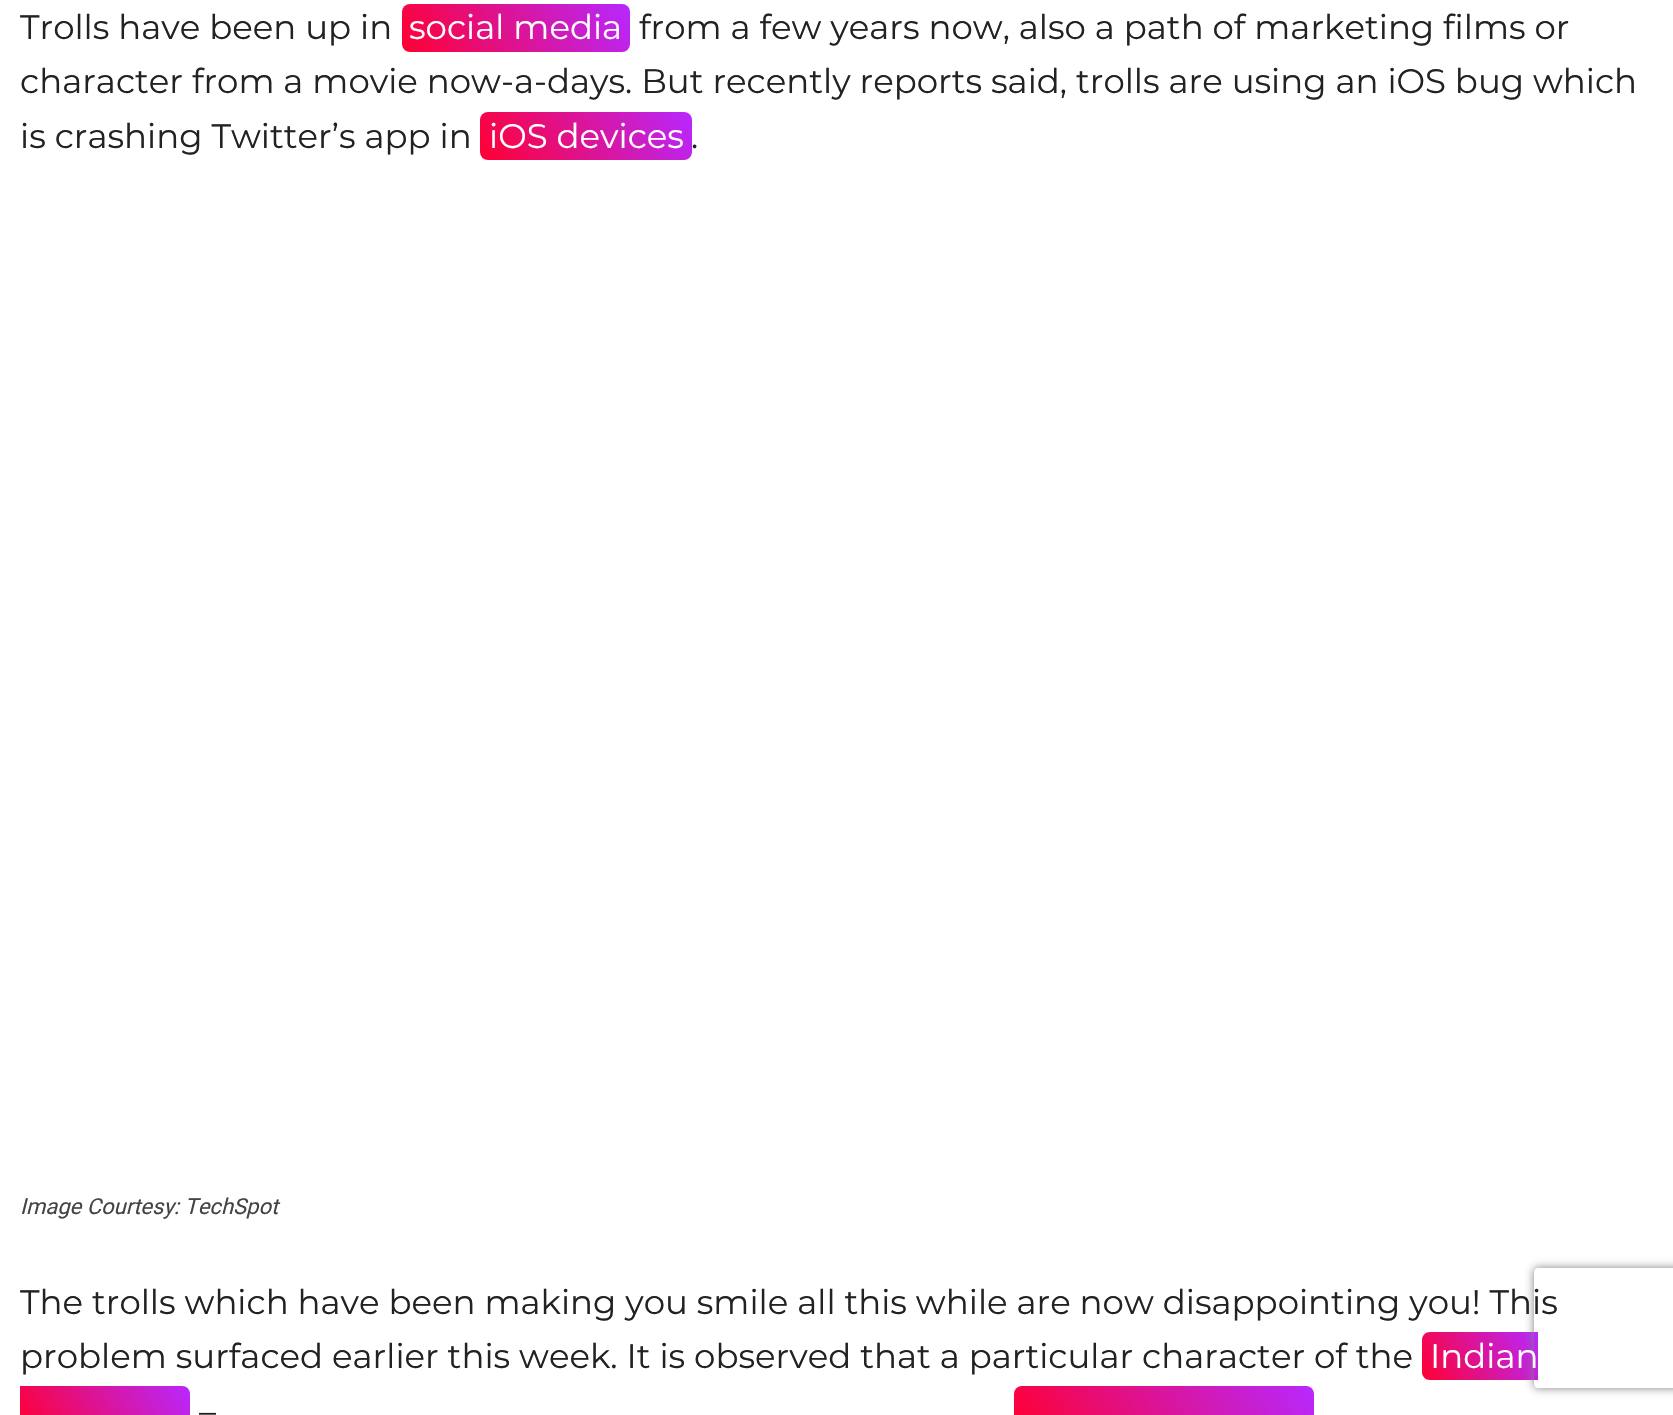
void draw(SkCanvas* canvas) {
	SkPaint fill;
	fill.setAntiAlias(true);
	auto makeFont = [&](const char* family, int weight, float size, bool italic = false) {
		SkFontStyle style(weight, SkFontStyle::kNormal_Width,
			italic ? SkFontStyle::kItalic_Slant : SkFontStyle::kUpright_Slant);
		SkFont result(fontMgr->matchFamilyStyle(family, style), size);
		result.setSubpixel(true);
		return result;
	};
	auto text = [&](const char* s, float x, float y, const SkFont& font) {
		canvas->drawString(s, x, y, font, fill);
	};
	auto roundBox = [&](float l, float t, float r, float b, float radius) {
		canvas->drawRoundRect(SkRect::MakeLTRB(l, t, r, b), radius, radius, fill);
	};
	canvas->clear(0xFFFFFFFF);
	{
		const SkColor colors[] = {0xFFFF0032, 0xFFB728FF};
		const float stops[] = {0, 1};
		const SkPoint ends[] = {{420, 83}, {612, -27}};
		fill.setShader(SkGradientShader::MakeLinear(ends, colors, stops, 2, SkTileMode::kClamp));
		fill.setAlpha(255);
	}
	roundBox(402, 4, 630, 52, 8);
	{
		const SkColor colors[] = {0xFFFF0032, 0xFFB728FF};
		const float stops[] = {0, 1};
		const SkPoint ends[] = {{496, 188}, {676, 84}};
		fill.setShader(SkGradientShader::MakeLinear(ends, colors, stops, 2, SkTileMode::kClamp));
		fill.setAlpha(255);
	}
	roundBox(480, 112, 692, 160, 8);
	{
		const SkColor colors[] = {0xFFFF0032, 0xFFB728FF};
		const float stops[] = {0, 1};
		const SkPoint ends[] = {{1426, 1387}, {1534, 1325}};
		fill.setShader(SkGradientShader::MakeLinear(ends, colors, stops, 2, SkTileMode::kClamp));
		fill.setAlpha(255);
	}
	canvas->drawPath(SkPathBuilder().moveTo(1430, 1332).lineTo(1538, 1332).lineTo(1538, 1380).lineTo(1430, 1380).cubicTo(1425.5f, 1380, 1422, 1376.5f, 1422, 1372).lineTo(1422, 1340).cubicTo(1422, 1335.5f, 1425.5f, 1332, 1430, 1332).close().detach(), fill);
	{
		const SkColor colors[] = {0xFFFF0032, 0xFFB728FF};
		const float stops[] = {0, 1};
		const SkPoint ends[] = {{31, 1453}, {179, 1367}};
		fill.setShader(SkGradientShader::MakeLinear(ends, colors, stops, 2, SkTileMode::kClamp));
		fill.setAlpha(255);
	}
	canvas->drawPath(SkPathBuilder().moveTo(20, 1386).lineTo(182, 1386).cubicTo(186.5f, 1386, 190, 1389.5f, 190, 1394).lineTo(190, 1415).cubicTo(190, 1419.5f, 186.5f, 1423, 182, 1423).lineTo(20, 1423).close().detach(), fill);
	{
		const SkColor colors[] = {0xFFFF0032, 0xFFB728FF};
		const float stops[] = {0, 1};
		const SkPoint ends[] = {{1041, 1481}, {1287, 1339}};
		fill.setShader(SkGradientShader::MakeLinear(ends, colors, stops, 2, SkTileMode::kClamp));
		fill.setAlpha(255);
	}
	roundBox(1014, 1386, 1314, 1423, 8);
	canvas->save();
	canvas->clipPath(SkPathBuilder(SkPathFillType::kEvenOdd).moveTo(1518, 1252).lineTo(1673, 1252).lineTo(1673, 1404).lineTo(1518, 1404).close().moveTo(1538, 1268).lineTo(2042, 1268).cubicTo(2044, 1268, 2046, 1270, 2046, 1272).lineTo(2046, 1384).cubicTo(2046, 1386, 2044, 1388, 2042, 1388).lineTo(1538, 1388).cubicTo(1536, 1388, 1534, 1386, 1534, 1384).lineTo(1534, 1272).cubicTo(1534, 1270, 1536, 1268, 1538, 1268).close().detach(), true);
	fill.setShader(nullptr);
	fill.setColor(0xFF808080);
	fill.setMaskFilter(SkMaskFilter::MakeBlur(kNormal_SkBlurStyle, 5));
	canvas->drawRoundRect(SkRect::MakeLTRB(1534, 1268, 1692, 1388), 4, 4, fill);
	fill.setMaskFilter(nullptr);
	canvas->restore();
	auto font1 = makeFont("Montserrat", 400, 34);
	fill.setColor(0xFF222222);
	text("Trolls have been up in", 20, 39, font1);
	fill.setColor(0xFFFFFFFF);
	text("social media", 409, 39, font1);
	fill.setColor(0xFF222222);
	text("from a few years now, also a path of marketing films or", 639, 39, font1);
	text("character from a movie now-a-days. But recently reports said, trolls are using an iOS bug which", 20, 93, font1);
	text("is crashing Twitter’s app in", 20, 148, font1);
	fill.setColor(0xFFFFFFFF);
	text("iOS devices", 489, 148, font1);
	fill.setColor(0xFF222222);
	text(".", 691, 148, font1);
	auto font2 = makeFont("Roboto", 400, 22, true);
	fill.setColor(0xFF444444);
	text("Image Courtesy: TechSpot", 20, 1214, font2);
	fill.setColor(0xFF222222);
	text("The trolls which have been making you smile all this while are now disappointing you! This", 20, 1314, font1);
	text("problem surfaced earlier this week. It is observed that a particular character of the", 20, 1368, font1);
	fill.setColor(0xFFFFFFFF);
	text("Indian", 1430, 1368, font1);
	fill.setColor(0xFF222222);
	text("–", 199, 1423, font1);
}
